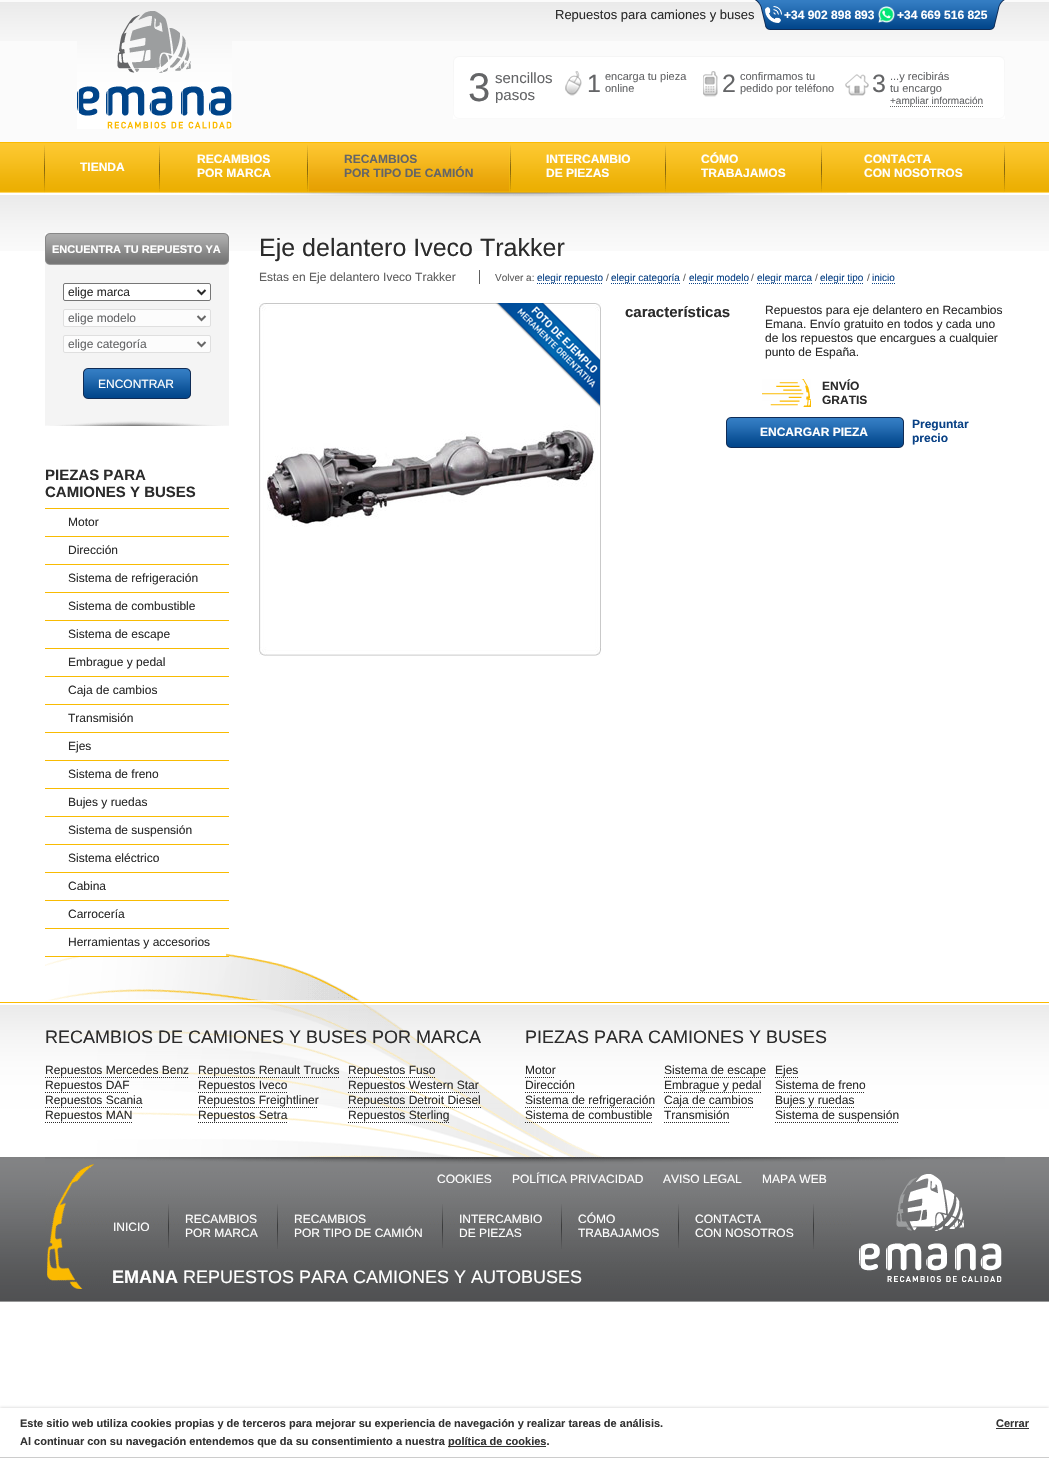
void draw(SkCanvas* canvas) {
	SkPaint fill;
	fill.setAntiAlias(true);
	auto makeFont = [&](const char* family, int weight, float size, bool italic = false) {
		SkFontStyle style(weight, SkFontStyle::kNormal_Width,
			italic ? SkFontStyle::kItalic_Slant : SkFontStyle::kUpright_Slant);
		SkFont result(fontMgr->matchFamilyStyle(family, style), size);
		result.setSubpixel(true);
		return result;
	};
	auto text = [&](const char* s, float x, float y, const SkFont& font) {
		canvas->drawString(s, x, y, font, fill);
	};
	auto box = [&](float l, float t, float r, float b) {
		canvas->drawRect(SkRect::MakeLTRB(l, t, r, b), fill);
	};
	auto picture = [&](const char* path, float l, float t, float r, float b) {
		auto image = SkImages::DeferredFromEncodedData(SkData::MakeFromFileName(path));
		canvas->drawImageRect(image, SkRect::MakeLTRB(l, t, r, b), SkSamplingOptions());
	};
	canvas->clear(0xFFFFFFFF);
	fill.setColor(0xFFFBFBFB);
	box(0, 0, 1049, 142);
	picture("image0.png", 0, 2, 1049, 41);
	picture("image1.png", 77, 11, 232, 129);
	picture("image2.png", 755, 0, 1005, 30);
	picture("image3.png", 765, 6, 782, 23);
	picture("image4.png", 878, 6, 895, 23);
	picture("image5.png", 453, 56, 1005, 119);
	picture("image6.png", 565, 71, 582, 96);
	picture("image7.png", 703, 71, 718, 97);
	picture("image8.png", 845, 74, 869, 96);
	fill.setStyle(SkPaint::kStroke_Style);
	fill.setStrokeWidth(1);
	fill.setColor(0xFF646464);
	fill.setPathEffect(SkDashPathEffect::Make({{1, 1}}, 0));
	canvas->drawPath(SkPathBuilder().moveTo(890, 106.5f).lineTo(984, 106.5f).detach(), fill);
	fill.setPathEffect(nullptr);
	picture("image9.png", 0, 142, 1049, 193);
	picture("image10.png", 44, 145, 1004, 193);
	picture("image11.png", 159, 145, 160, 192);
	picture("image12.png", 46, 142, 158, 192);
	picture("image11.png", 307, 145, 308, 192);
	picture("image13.png", 161, 142, 306, 192);
	picture("image11.png", 510, 145, 511, 192);
	picture("image14.png", 309, 142, 509, 192);
	picture("image11.png", 665, 145, 666, 192);
	picture("image15.png", 512, 142, 664, 192);
	picture("image11.png", 821, 145, 822, 192);
	picture("image16.png", 667, 142, 820, 192);
	picture("image17.png", 1003, 145, 1005, 192);
	picture("image18.png", 823, 142, 1003, 192);
	picture("image19.png", 0, 195, 1049, 251);
	picture("image20.png", 200, 193, 847, 197);
	picture("image21.png", 45, 265, 229, 426);
	picture("image22.png", 45, 233, 229, 265);
	fill.setStyle(SkPaint::kFill_Style);
	fill.setColor(0xFFFFFFFF);
	canvas->drawRoundRect(SkRect::MakeLTRB(63.5f, 283.5f, 210.5f, 300.5f), 1.5f, 1.5f, fill);
	fill.setStyle(SkPaint::kStroke_Style);
	fill.setColor(0xFF767676);
	canvas->drawRoundRect(SkRect::MakeLTRB(63.5f, 283.5f, 210.5f, 300.5f), 1.5f, 1.5f, fill);
	fill.setStrokeWidth(2);
	fill.setColor(0xFF2B2B2B);
	canvas->drawPath(SkPathBuilder().moveTo(197.5f, 290).lineTo(201.5f, 294).lineTo(205.5f, 290).detach(), fill);
	fill.setStyle(SkPaint::kFill_Style);
	fill.setColor(0xFFFCFCFC);
	canvas->drawRoundRect(SkRect::MakeLTRB(63.5f, 309.5f, 210.5f, 326.5f), 1.5f, 1.5f, fill);
	fill.setStyle(SkPaint::kStroke_Style);
	fill.setStrokeWidth(1);
	fill.setColor(0xFFDFDFDF);
	canvas->drawRoundRect(SkRect::MakeLTRB(63.5f, 309.5f, 210.5f, 326.5f), 1.5f, 1.5f, fill);
	fill.setStrokeWidth(2);
	fill.setColor(0xFF676767);
	canvas->drawPath(SkPathBuilder().moveTo(197.5f, 316).lineTo(201.5f, 320).lineTo(205.5f, 316).detach(), fill);
	fill.setStyle(SkPaint::kFill_Style);
	fill.setColor(0xFFFCFCFC);
	canvas->drawRoundRect(SkRect::MakeLTRB(63.5f, 335.5f, 210.5f, 352.5f), 1.5f, 1.5f, fill);
	fill.setStyle(SkPaint::kStroke_Style);
	fill.setStrokeWidth(1);
	fill.setColor(0xFFDFDFDF);
	canvas->drawRoundRect(SkRect::MakeLTRB(63.5f, 335.5f, 210.5f, 352.5f), 1.5f, 1.5f, fill);
	fill.setStrokeWidth(2);
	fill.setColor(0xFF676767);
	canvas->drawPath(SkPathBuilder().moveTo(197.5f, 342).lineTo(201.5f, 346).lineTo(205.5f, 342).detach(), fill);
	picture("image23.png", 83, 368, 191, 399);
	fill.setStyle(SkPaint::kFill_Style);
	fill.setColor(0xFFF8BB02);
	box(45, 508, 229, 509);
	box(45, 536, 229, 537);
	box(45, 564, 229, 565);
	box(45, 592, 229, 593);
	box(45, 620, 229, 621);
	box(45, 648, 229, 649);
	box(45, 676, 229, 677);
	box(45, 704, 229, 705);
	box(45, 732, 229, 733);
	box(45, 760, 229, 761);
	box(45, 788, 229, 789);
	box(45, 816, 229, 817);
	box(45, 844, 229, 845);
	box(45, 872, 229, 873);
	box(45, 900, 229, 901);
	box(45, 928, 229, 929);
	picture("image28.png", 45, 948, 362, 1002);
	box(45, 956, 229, 957);
	fill.setColor(0xFFFFFFFF);
	box(76, 948, 226, 956);
	fill.setColor(0xFF5E5E5E);
	box(479, 270, 480, 284);
	fill.setStyle(SkPaint::kStroke_Style);
	fill.setStrokeWidth(1);
	fill.setColor(0xFF0A4286);
	fill.setPathEffect(SkDashPathEffect::Make({{1, 1}}, 0));
	canvas->drawPath(SkPathBuilder().moveTo(537, 283.5f).lineTo(603, 283.5f).detach(), fill);
	fill.setPathEffect(nullptr);
	fill.setPathEffect(SkDashPathEffect::Make({{1, 1}}, 0));
	canvas->drawPath(SkPathBuilder().moveTo(611, 283.5f).lineTo(680, 283.5f).detach(), fill);
	fill.setPathEffect(nullptr);
	fill.setPathEffect(SkDashPathEffect::Make({{1, 1}}, 0));
	canvas->drawPath(SkPathBuilder().moveTo(689, 283.5f).lineTo(749, 283.5f).detach(), fill);
	fill.setPathEffect(nullptr);
	fill.setPathEffect(SkDashPathEffect::Make({{1, 1}}, 0));
	canvas->drawPath(SkPathBuilder().moveTo(757, 283.5f).lineTo(812, 283.5f).detach(), fill);
	fill.setPathEffect(nullptr);
	fill.setPathEffect(SkDashPathEffect::Make({{1, 1}}, 0));
	canvas->drawPath(SkPathBuilder().moveTo(820, 283.5f).lineTo(864, 283.5f).detach(), fill);
	fill.setPathEffect(nullptr);
	fill.setPathEffect(SkDashPathEffect::Make({{1, 1}}, 0));
	canvas->drawPath(SkPathBuilder().moveTo(872, 283.5f).lineTo(895, 283.5f).detach(), fill);
	fill.setPathEffect(nullptr);
	picture("image24.png", 259, 303, 601, 656);
	picture("image25.png", 495, 303, 600, 408);
	picture("image26.png", 762, 379, 811, 407);
	picture("image27.png", 726, 417, 904, 448);
	picture("image29.png", 0, 1002, 1049, 1157);
	picture("image30.png", 45, 1003, 602, 1157);
	fill.setColor(0xFF2B2B2B);
	fill.setPathEffect(SkDashPathEffect::Make({{1, 1}}, 0));
	canvas->drawPath(SkPathBuilder().moveTo(45, 1077.5f).lineTo(189, 1077.5f).detach(), fill);
	fill.setPathEffect(nullptr);
	fill.setPathEffect(SkDashPathEffect::Make({{1, 1}}, 0));
	canvas->drawPath(SkPathBuilder().moveTo(45, 1092.5f).lineTo(129, 1092.5f).detach(), fill);
	fill.setPathEffect(nullptr);
	fill.setPathEffect(SkDashPathEffect::Make({{1, 1}}, 0));
	canvas->drawPath(SkPathBuilder().moveTo(45, 1107.5f).lineTo(142, 1107.5f).detach(), fill);
	fill.setPathEffect(nullptr);
	fill.setPathEffect(SkDashPathEffect::Make({{1, 1}}, 0));
	canvas->drawPath(SkPathBuilder().moveTo(45, 1122.5f).lineTo(132, 1122.5f).detach(), fill);
	fill.setPathEffect(nullptr);
	fill.setPathEffect(SkDashPathEffect::Make({{1, 1}}, 0));
	canvas->drawPath(SkPathBuilder().moveTo(198, 1077.5f).lineTo(339, 1077.5f).detach(), fill);
	fill.setPathEffect(nullptr);
	fill.setPathEffect(SkDashPathEffect::Make({{1, 1}}, 0));
	canvas->drawPath(SkPathBuilder().moveTo(198, 1092.5f).lineTo(287, 1092.5f).detach(), fill);
	fill.setPathEffect(nullptr);
	fill.setPathEffect(SkDashPathEffect::Make({{1, 1}}, 0));
	canvas->drawPath(SkPathBuilder().moveTo(198, 1107.5f).lineTo(318, 1107.5f).detach(), fill);
	fill.setPathEffect(nullptr);
	fill.setPathEffect(SkDashPathEffect::Make({{1, 1}}, 0));
	canvas->drawPath(SkPathBuilder().moveTo(198, 1122.5f).lineTo(287, 1122.5f).detach(), fill);
	fill.setPathEffect(nullptr);
	fill.setPathEffect(SkDashPathEffect::Make({{1, 1}}, 0));
	canvas->drawPath(SkPathBuilder().moveTo(348, 1077.5f).lineTo(435, 1077.5f).detach(), fill);
	fill.setPathEffect(nullptr);
	fill.setPathEffect(SkDashPathEffect::Make({{1, 1}}, 0));
	canvas->drawPath(SkPathBuilder().moveTo(348, 1092.5f).lineTo(479, 1092.5f).detach(), fill);
	fill.setPathEffect(nullptr);
	fill.setPathEffect(SkDashPathEffect::Make({{1, 1}}, 0));
	canvas->drawPath(SkPathBuilder().moveTo(348, 1107.5f).lineTo(481, 1107.5f).detach(), fill);
	fill.setPathEffect(nullptr);
	fill.setPathEffect(SkDashPathEffect::Make({{1, 1}}, 0));
	canvas->drawPath(SkPathBuilder().moveTo(348, 1122.5f).lineTo(449, 1122.5f).detach(), fill);
	fill.setPathEffect(nullptr);
	fill.setPathEffect(SkDashPathEffect::Make({{1, 1}}, 0));
	canvas->drawPath(SkPathBuilder().moveTo(525, 1077.5f).lineTo(555, 1077.5f).detach(), fill);
	fill.setPathEffect(nullptr);
	fill.setPathEffect(SkDashPathEffect::Make({{1, 1}}, 0));
	canvas->drawPath(SkPathBuilder().moveTo(525, 1092.5f).lineTo(575, 1092.5f).detach(), fill);
	fill.setPathEffect(nullptr);
	fill.setPathEffect(SkDashPathEffect::Make({{1, 1}}, 0));
	canvas->drawPath(SkPathBuilder().moveTo(525, 1107.5f).lineTo(655, 1107.5f).detach(), fill);
	fill.setPathEffect(nullptr);
	fill.setPathEffect(SkDashPathEffect::Make({{1, 1}}, 0));
	canvas->drawPath(SkPathBuilder().moveTo(525, 1122.5f).lineTo(652, 1122.5f).detach(), fill);
	fill.setPathEffect(nullptr);
	fill.setPathEffect(SkDashPathEffect::Make({{1, 1}}, 0));
	canvas->drawPath(SkPathBuilder().moveTo(664, 1077.5f).lineTo(766, 1077.5f).detach(), fill);
	fill.setPathEffect(nullptr);
	fill.setPathEffect(SkDashPathEffect::Make({{1, 1}}, 0));
	canvas->drawPath(SkPathBuilder().moveTo(664, 1092.5f).lineTo(761, 1092.5f).detach(), fill);
	fill.setPathEffect(nullptr);
	fill.setPathEffect(SkDashPathEffect::Make({{1, 1}}, 0));
	canvas->drawPath(SkPathBuilder().moveTo(664, 1107.5f).lineTo(753, 1107.5f).detach(), fill);
	fill.setPathEffect(nullptr);
	fill.setPathEffect(SkDashPathEffect::Make({{1, 1}}, 0));
	canvas->drawPath(SkPathBuilder().moveTo(664, 1122.5f).lineTo(729, 1122.5f).detach(), fill);
	fill.setPathEffect(nullptr);
	fill.setPathEffect(SkDashPathEffect::Make({{1, 1}}, 0));
	canvas->drawPath(SkPathBuilder().moveTo(775, 1077.5f).lineTo(798, 1077.5f).detach(), fill);
	fill.setPathEffect(nullptr);
	fill.setPathEffect(SkDashPathEffect::Make({{1, 1}}, 0));
	canvas->drawPath(SkPathBuilder().moveTo(775, 1092.5f).lineTo(865, 1092.5f).detach(), fill);
	fill.setPathEffect(nullptr);
	fill.setPathEffect(SkDashPathEffect::Make({{1, 1}}, 0));
	canvas->drawPath(SkPathBuilder().moveTo(775, 1107.5f).lineTo(854, 1107.5f).detach(), fill);
	fill.setPathEffect(nullptr);
	fill.setPathEffect(SkDashPathEffect::Make({{1, 1}}, 0));
	canvas->drawPath(SkPathBuilder().moveTo(775, 1122.5f).lineTo(899, 1122.5f).detach(), fill);
	fill.setPathEffect(nullptr);
	picture("image31.png", 0, 1157, 1049, 1304);
	picture("image32.png", 45, 1157, 1005, 1289);
	picture("image33.png", 168, 1204, 169, 1248);
	picture("image34.png", 277, 1204, 278, 1249);
	picture("image33.png", 442, 1204, 443, 1248);
	picture("image34.png", 561, 1204, 562, 1249);
	picture("image33.png", 678, 1204, 679, 1248);
	picture("image34.png", 813, 1204, 814, 1249);
	picture("image35.png", 853, 1174, 1003, 1282);
	canvas->save();
	canvas->clipRect(SkRect::MakeLTRB(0, 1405, 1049, 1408));
	fill.setStyle(SkPaint::kFill_Style);
	fill.setColor(0xFFCCCCCC);
	fill.setMaskFilter(SkMaskFilter::MakeBlur(kNormal_SkBlurStyle, 1.5f));
	canvas->drawRect(SkRect::MakeLTRB(0, 1408, 1049, 1458), fill);
	fill.setMaskFilter(nullptr);
	canvas->restore();
	box(0, 1457, 1049, 1458);
	fill.setColor(0xFF333333);
	box(448, 1446, 546, 1447);
	box(996, 1428, 1029, 1429);
	auto font1 = makeFont("Liberation Sans", 400, 13);
	fill.setColor(0xFF2B2B2B);
	text("Repuestos para camiones y buses", 555, 19, font1);
	auto font2 = makeFont("Liberation Sans", 700, 12);
	fill.setColor(0xFFFFFFFF);
	text("+34 902 898 893", 784, 19, font2);
	text("+34 669 516 825", 897, 19, font2);
	auto font3 = makeFont("Liberation Sans", 400, 40);
	fill.setColor(0xFF646567);
	text("3", 468, 101, font3);
	auto font4 = makeFont("Liberation Sans", 400, 15);
	text("sencillos", 495, 83, font4);
	text("pasos", 495, 100, font4);
	auto font5 = makeFont("Liberation Sans", 400, 25);
	text("1", 587, 92, font5);
	auto font6 = makeFont("Liberation Sans", 400, 11);
	text("encarga tu pieza", 605, 80, font6);
	text("online", 605, 92, font6);
	text("2", 722, 92, font5);
	text("confirmamos tu", 740, 80, font6);
	text("pedido por teléfono", 740, 92, font6);
	text("3", 872, 92, font5);
	text("...y recibirás", 890, 80, font6);
	text("tu encargo", 890, 92, font6);
	auto font7 = makeFont("Liberation Sans", 400, 10);
	text("+ampliar información", 890, 104, font7);
	fill.setColor(0xFFFFFFFF);
	text("TIENDA", 80, 171, font2);
	text("RECAMBIOS", 197, 163, font2);
	text("POR MARCA", 197, 177, font2);
	fill.setColor(0xFF646567);
	text("RECAMBIOS", 344, 163, font2);
	text("POR TIPO DE CAMIÓN", 344, 177, font2);
	fill.setColor(0xFFFFFFFF);
	text("INTERCAMBIO", 546, 163, font2);
	text("DE PIEZAS", 546, 177, font2);
	text("CÓMO", 701, 163, font2);
	text("TRABAJAMOS", 701, 177, font2);
	text("CONTACTA", 864, 163, font2);
	text("CON NOSOTROS", 864, 177, font2);
	auto font8 = makeFont("Liberation Sans", 700, 11);
	text("ENCUENTRA TU REPUESTO YA", 52, 253, font8);
	auto font9 = makeFont("Liberation Sans", 400, 12);
	fill.setColor(0xFF2B2B2B);
	text("elige marca", 68, 296, font9);
	fill.setColor(0xFF646567);
	text("elige modelo", 68, 322, font9);
	text("elige categoría", 68, 348, font9);
	fill.setColor(0xFFFFFFFF);
	text("ENCONTRAR", 98, 388, font9);
	auto font10 = makeFont("Liberation Sans", 700, 15);
	fill.setColor(0xFF2B2B2B);
	text("PIEZAS PARA", 45, 480, font10);
	text("CAMIONES Y BUSES", 45, 497, font10);
	text("Motor", 68, 526, font9);
	text("Dirección", 68, 554, font9);
	text("Sistema de refrigeración", 68, 582, font9);
	text("Sistema de combustible", 68, 610, font9);
	text("Sistema de escape", 68, 638, font9);
	text("Embrague y pedal", 68, 666, font9);
	text("Caja de cambios", 68, 694, font9);
	text("Transmisión", 68, 722, font9);
	text("Ejes", 68, 750, font9);
	text("Sistema de freno", 68, 778, font9);
	text("Bujes y ruedas", 68, 806, font9);
	text("Sistema de suspensión", 68, 834, font9);
	text("Sistema eléctrico", 68, 862, font9);
	text("Cabina", 68, 890, font9);
	text("Carrocería", 68, 918, font9);
	text("Herramientas y accesorios", 68, 946, font9);
	text("Eje delantero Iveco Trakker", 259, 256, font5);
	fill.setColor(0xFF5E5E5E);
	text("Estas en Eje delantero Iveco Trakker", 259, 281, font9);
	text("Volver a:", 495, 281, font7);
	fill.setColor(0xFF0A4286);
	text("elegir repuesto", 537, 281, font7);
	fill.setColor(0xFF5E5E5E);
	text("/", 606, 281, font7);
	fill.setColor(0xFF0A4286);
	text("elegir categoría", 611, 281, font7);
	fill.setColor(0xFF5E5E5E);
	text("/", 683, 281, font7);
	fill.setColor(0xFF0A4286);
	text("elegir modelo", 689, 281, font7);
	fill.setColor(0xFF5E5E5E);
	text("/", 751, 281, font7);
	fill.setColor(0xFF0A4286);
	text("elegir marca", 757, 281, font7);
	fill.setColor(0xFF5E5E5E);
	text("/", 815, 281, font7);
	fill.setColor(0xFF0A4286);
	text("elegir tipo", 820, 281, font7);
	fill.setColor(0xFF5E5E5E);
	text("/", 867, 281, font7);
	fill.setColor(0xFF0A4286);
	text("inicio", 872, 281, font7);
	fill.setColor(0xFF2B2B2B);
	text("características", 625, 317, font10);
	text("Repuestos para eje delantero en Recambios", 765, 314, font9);
	text("Emana. Envío gratuito en todos y cada uno", 765, 328, font9);
	text("de los repuestos que encargues a cualquier", 765, 342, font9);
	text("punto de España.", 765, 356, font9);
	text("ENVÍO", 822, 390, font2);
	text("GRATIS", 822, 404, font2);
	fill.setColor(0xFFFFFFFF);
	text("ENCARGAR PIEZA", 760, 436, font2);
	fill.setColor(0xFF0A4286);
	text("Preguntar", 912, 428, font2);
	text("precio", 912, 442, font2);
	auto font11 = makeFont("Liberation Sans", 400, 18);
	fill.setColor(0xFF2B2B2B);
	text("RECAMBIOS DE CAMIONES Y BUSES POR MARCA", 45, 1043, font11);
	text("Repuestos Mercedes Benz", 45, 1074, font9);
	text("Repuestos DAF", 45, 1089, font9);
	text("Repuestos Scania", 45, 1104, font9);
	text("Repuestos MAN", 45, 1119, font9);
	text("Repuestos Renault Trucks", 198, 1074, font9);
	text("Repuestos Iveco", 198, 1089, font9);
	text("Repuestos Freightliner", 198, 1104, font9);
	text("Repuestos Setra", 198, 1119, font9);
	text("Repuestos Fuso", 348, 1074, font9);
	text("Repuestos Western Star", 348, 1089, font9);
	text("Repuestos Detroit Diesel", 348, 1104, font9);
	text("Repuestos Sterling", 348, 1119, font9);
	text("PIEZAS PARA CAMIONES Y BUSES", 525, 1043, font11);
	text("Motor", 525, 1074, font9);
	text("Dirección", 525, 1089, font9);
	text("Sistema de refrigeración", 525, 1104, font9);
	text("Sistema de combustible", 525, 1119, font9);
	text("Sistema de escape", 664, 1074, font9);
	text("Embrague y pedal", 664, 1089, font9);
	text("Caja de cambios", 664, 1104, font9);
	text("Transmisión", 664, 1119, font9);
	text("Ejes", 775, 1074, font9);
	text("Sistema de freno", 775, 1089, font9);
	text("Bujes y ruedas", 775, 1104, font9);
	text("Sistema de suspensión", 775, 1119, font9);
	fill.setColor(0xFFFFFFFF);
	text("COOKIES", 437, 1183, font9);
	text("POLÍTICA PRIVACIDAD", 512, 1183, font9);
	text("AVISO LEGAL", 663, 1183, font9);
	text("MAPA WEB", 762, 1183, font9);
	text("INICIO", 113, 1231, font9);
	text("RECAMBIOS", 185, 1223, font9);
	text("POR MARCA", 185, 1237, font9);
	text("RECAMBIOS", 294, 1223, font9);
	text("POR TIPO DE CAMIÓN", 294, 1237, font9);
	text("INTERCAMBIO", 459, 1223, font9);
	text("DE PIEZAS", 459, 1237, font9);
	text("CÓMO", 578, 1223, font9);
	text("TRABAJAMOS", 578, 1237, font9);
	text("CONTACTA", 695, 1223, font9);
	text("CON NOSOTROS", 695, 1237, font9);
	auto font12 = makeFont("Liberation Sans", 700, 18);
	text("EMANA", 112, 1283, font12);
	text("REPUESTOS PARA CAMIONES Y AUTOBUSES", 183, 1283, font11);
	fill.setColor(0xFF333333);
	text("Este sitio web utiliza cookies propias y de terceros para mejorar su experiencia de navegación y realizar tareas de análisis.", 20, 1427, font8);
	text("Al continuar con su navegación entendemos que da su consentimiento a nuestra", 20, 1445, font8);
	text("política de cookies.", 448, 1445, font8);
	text("Cerrar", 996, 1427, font8);
}
